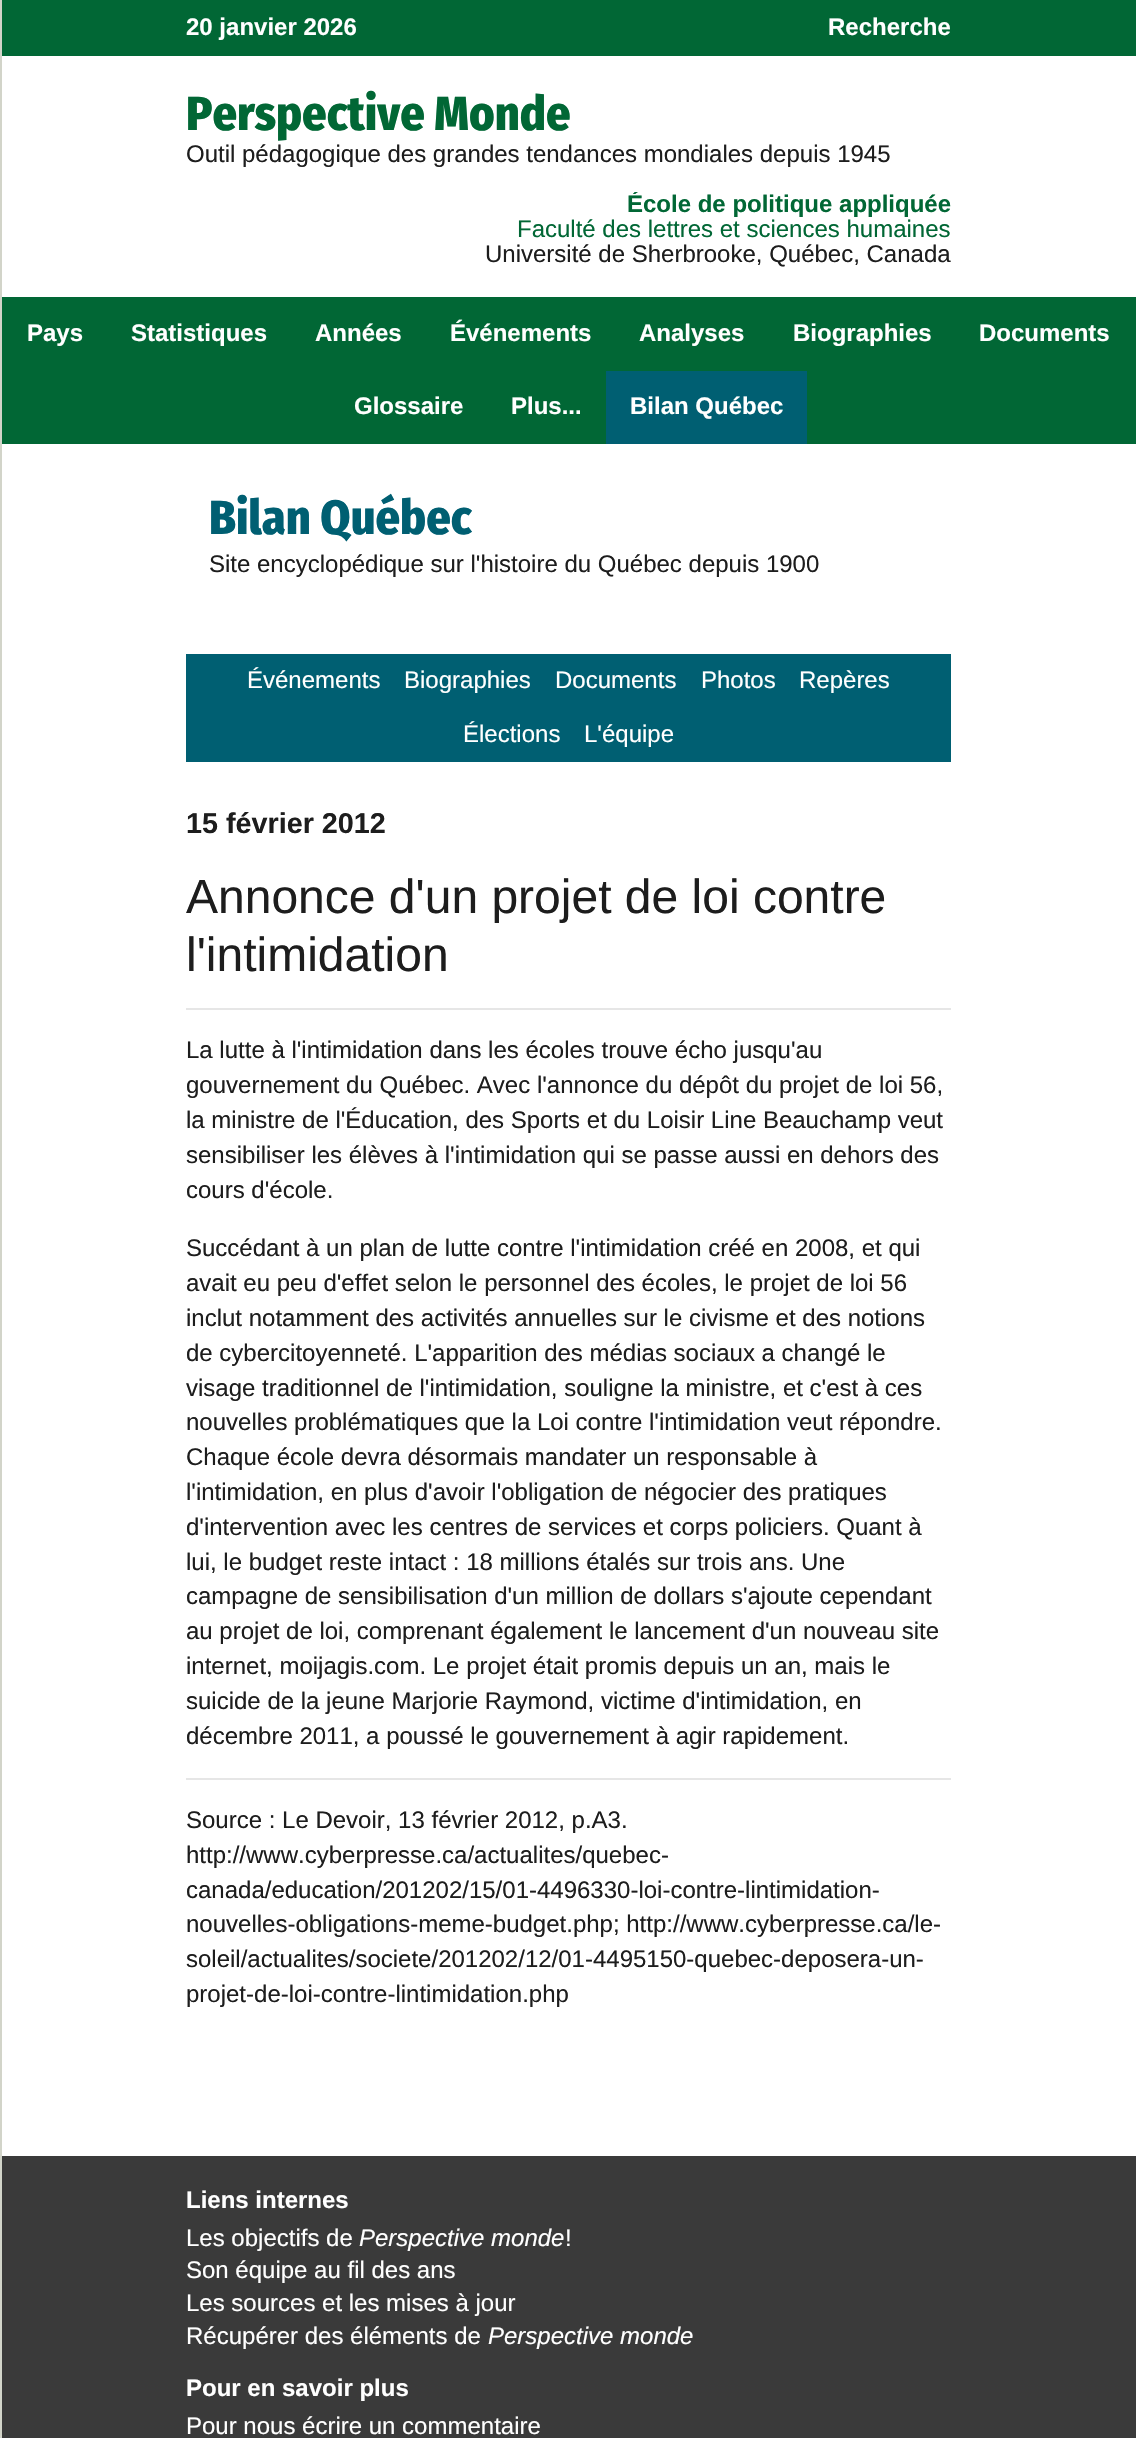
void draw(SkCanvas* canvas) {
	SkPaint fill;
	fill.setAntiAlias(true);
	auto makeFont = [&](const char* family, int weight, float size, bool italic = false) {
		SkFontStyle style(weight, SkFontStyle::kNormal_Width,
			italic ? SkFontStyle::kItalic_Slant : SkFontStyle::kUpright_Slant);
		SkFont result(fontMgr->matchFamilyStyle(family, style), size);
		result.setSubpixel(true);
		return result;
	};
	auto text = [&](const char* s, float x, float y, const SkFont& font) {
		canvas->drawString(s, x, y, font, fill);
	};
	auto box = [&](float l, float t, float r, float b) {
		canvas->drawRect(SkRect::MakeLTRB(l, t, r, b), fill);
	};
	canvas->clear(0xFFFFFFFF);
	fill.setColor(0xFFD2D4C9);
	box(0, 0, 2, 2438);
	fill.setColor(0xFF016735);
	box(2, 0, 1136, 56);
	box(2, 297, 1136, 444);
	fill.setColor(0xFF005F72);
	box(606, 371, 807, 444);
	box(186, 654, 951, 762);
	fill.setColor(0xFFE6E6E6);
	box(186, 1008, 951, 1010);
	box(186, 1778, 951, 1780);
	fill.setColor(0xFF3A3A3A);
	box(2, 2156, 1136, 2438);
	auto font1 = makeFont("Liberation Sans", 700, 24);
	fill.setColor(0xFFFFFFFF);
	text("20 janvier 2026", 186, 35, font1);
	text("Recherche", 828, 35, font1);
	auto font2 = makeFont("Fira Sans Condensed", 800, 48);
	fill.setColor(0xFF016735);
	text("Perspective Monde", 186, 130, font2);
	auto font3 = makeFont("Liberation Sans", 400, 24);
	fill.setColor(0xFF1D1D1D);
	text("Outil pédagogique des grandes tendances mondiales depuis 1945", 186, 162, font3);
	canvas->save();
	canvas->clipRect(SkRect::MakeLTRB(164, 192, 974, 267));
	fill.setColor(0xFF016735);
	text("École de politique appliquée", 627, 212, font1);
	canvas->restore();
	text("Faculté des lettres et sciences humaines", 517, 237, font3);
	fill.setColor(0xFF1D1D1D);
	text("Université de Sherbrooke, Québec, Canada", 485, 262, font3);
	fill.setColor(0xFFFFFFFF);
	text("Pays", 27, 341, font1);
	text("Statistiques", 131, 341, font1);
	text("Années", 315, 341, font1);
	text("Événements", 450, 341, font1);
	text("Analyses", 639, 341, font1);
	text("Biographies", 793, 341, font1);
	text("Documents", 979, 341, font1);
	text("Glossaire", 354, 414, font1);
	text("Plus...", 511, 414, font1);
	text("Bilan Québec", 630, 414, font1);
	fill.setColor(0xFF005F72);
	text("Bilan Québec", 209, 534, font2);
	fill.setColor(0xFF1D1D1D);
	text("Site encyclopédique sur l'histoire du Québec depuis 1900", 209, 572, font3);
	fill.setColor(0xFFFFFFFF);
	text("Événements", 247, 688, font3);
	text("Biographies", 404, 688, font3);
	text("Documents", 555, 688, font3);
	text("Photos", 701, 688, font3);
	text("Repères", 799, 688, font3);
	text("Élections", 463, 742, font3);
	text("L'équipe", 584, 742, font3);
	auto font4 = makeFont("Liberation Sans", 700, 28.75f);
	fill.setColor(0xFF1D1D1D);
	text("15 février 2012", 186, 833, font4);
	auto font5 = makeFont("Liberation Sans", 400, 48);
	text("Annonce d'un projet de loi contre", 186, 913, font5);
	text("l'intimidation", 186, 971, font5);
	text("La lutte à l'intimidation dans les écoles trouve écho jusqu'au", 186, 1058, font3);
	text("gouvernement du Québec. Avec l'annonce du dépôt du projet de loi 56,", 186, 1093, font3);
	text("la ministre de l'Éducation, des Sports et du Loisir Line Beauchamp veut", 186, 1128, font3);
	text("sensibiliser les élèves à l'intimidation qui se passe aussi en dehors des", 186, 1163, font3);
	text("cours d'école.", 186, 1198, font3);
	text("Succédant à un plan de lutte contre l'intimidation créé en 2008, et qui", 186, 1256, font3);
	text("avait eu peu d'effet selon le personnel des écoles, le projet de loi 56", 186, 1291, font3);
	text("inclut notamment des activités annuelles sur le civisme et des notions", 186, 1326, font3);
	text("de cybercitoyenneté. L'apparition des médias sociaux a changé le", 186, 1361, font3);
	text("visage traditionnel de l'intimidation, souligne la ministre, et c'est à ces", 186, 1396, font3);
	text("nouvelles problématiques que la Loi contre l'intimidation veut répondre.", 186, 1430, font3);
	text("Chaque école devra désormais mandater un responsable à", 186, 1465, font3);
	text("l'intimidation, en plus d'avoir l'obligation de négocier des pratiques", 186, 1500, font3);
	text("d'intervention avec les centres de services et corps policiers. Quant à", 186, 1535, font3);
	text("lui, le budget reste intact : 18 millions étalés sur trois ans. Une", 186, 1570, font3);
	text("campagne de sensibilisation d'un million de dollars s'ajoute cependant", 186, 1604, font3);
	text("au projet de loi, comprenant également le lancement d'un nouveau site", 186, 1639, font3);
	text("internet, moijagis.com. Le projet était promis depuis un an, mais le", 186, 1674, font3);
	text("suicide de la jeune Marjorie Raymond, victime d'intimidation, en", 186, 1709, font3);
	text("décembre 2011, a poussé le gouvernement à agir rapidement.", 186, 1744, font3);
	text("Source : Le Devoir, 13 février 2012, p.A3.", 186, 1828, font3);
	text("http://www.cyberpresse.ca/actualites/quebec-", 186, 1863, font3);
	text("canada/education/201202/15/01-4496330-loi-contre-lintimidation-", 186, 1898, font3);
	text("nouvelles-obligations-meme-budget.php; http://www.cyberpresse.ca/le-", 186, 1932, font3);
	text("soleil/actualites/societe/201202/12/01-4495150-quebec-deposera-un-", 186, 1967, font3);
	text("projet-de-loi-contre-lintimidation.php", 186, 2002, font3);
	fill.setColor(0xFFFFFFFF);
	text("Liens internes", 186, 2208, font1);
	text("Les objectifs de", 186, 2246, font3);
	auto font6 = makeFont("Liberation Sans", 400, 24, true);
	text("Perspective monde", 359, 2246, font6);
	text("!", 565, 2246, font3);
	text("Son équipe au fil des ans", 186, 2278, font3);
	text("Les sources et les mises à jour", 186, 2311, font3);
	text("Récupérer des éléments de", 186, 2344, font3);
	text("Perspective monde", 488, 2344, font6);
	text("Pour en savoir plus", 186, 2396, font1);
	text("Pour nous écrire un commentaire", 186, 2434, font3);
}
